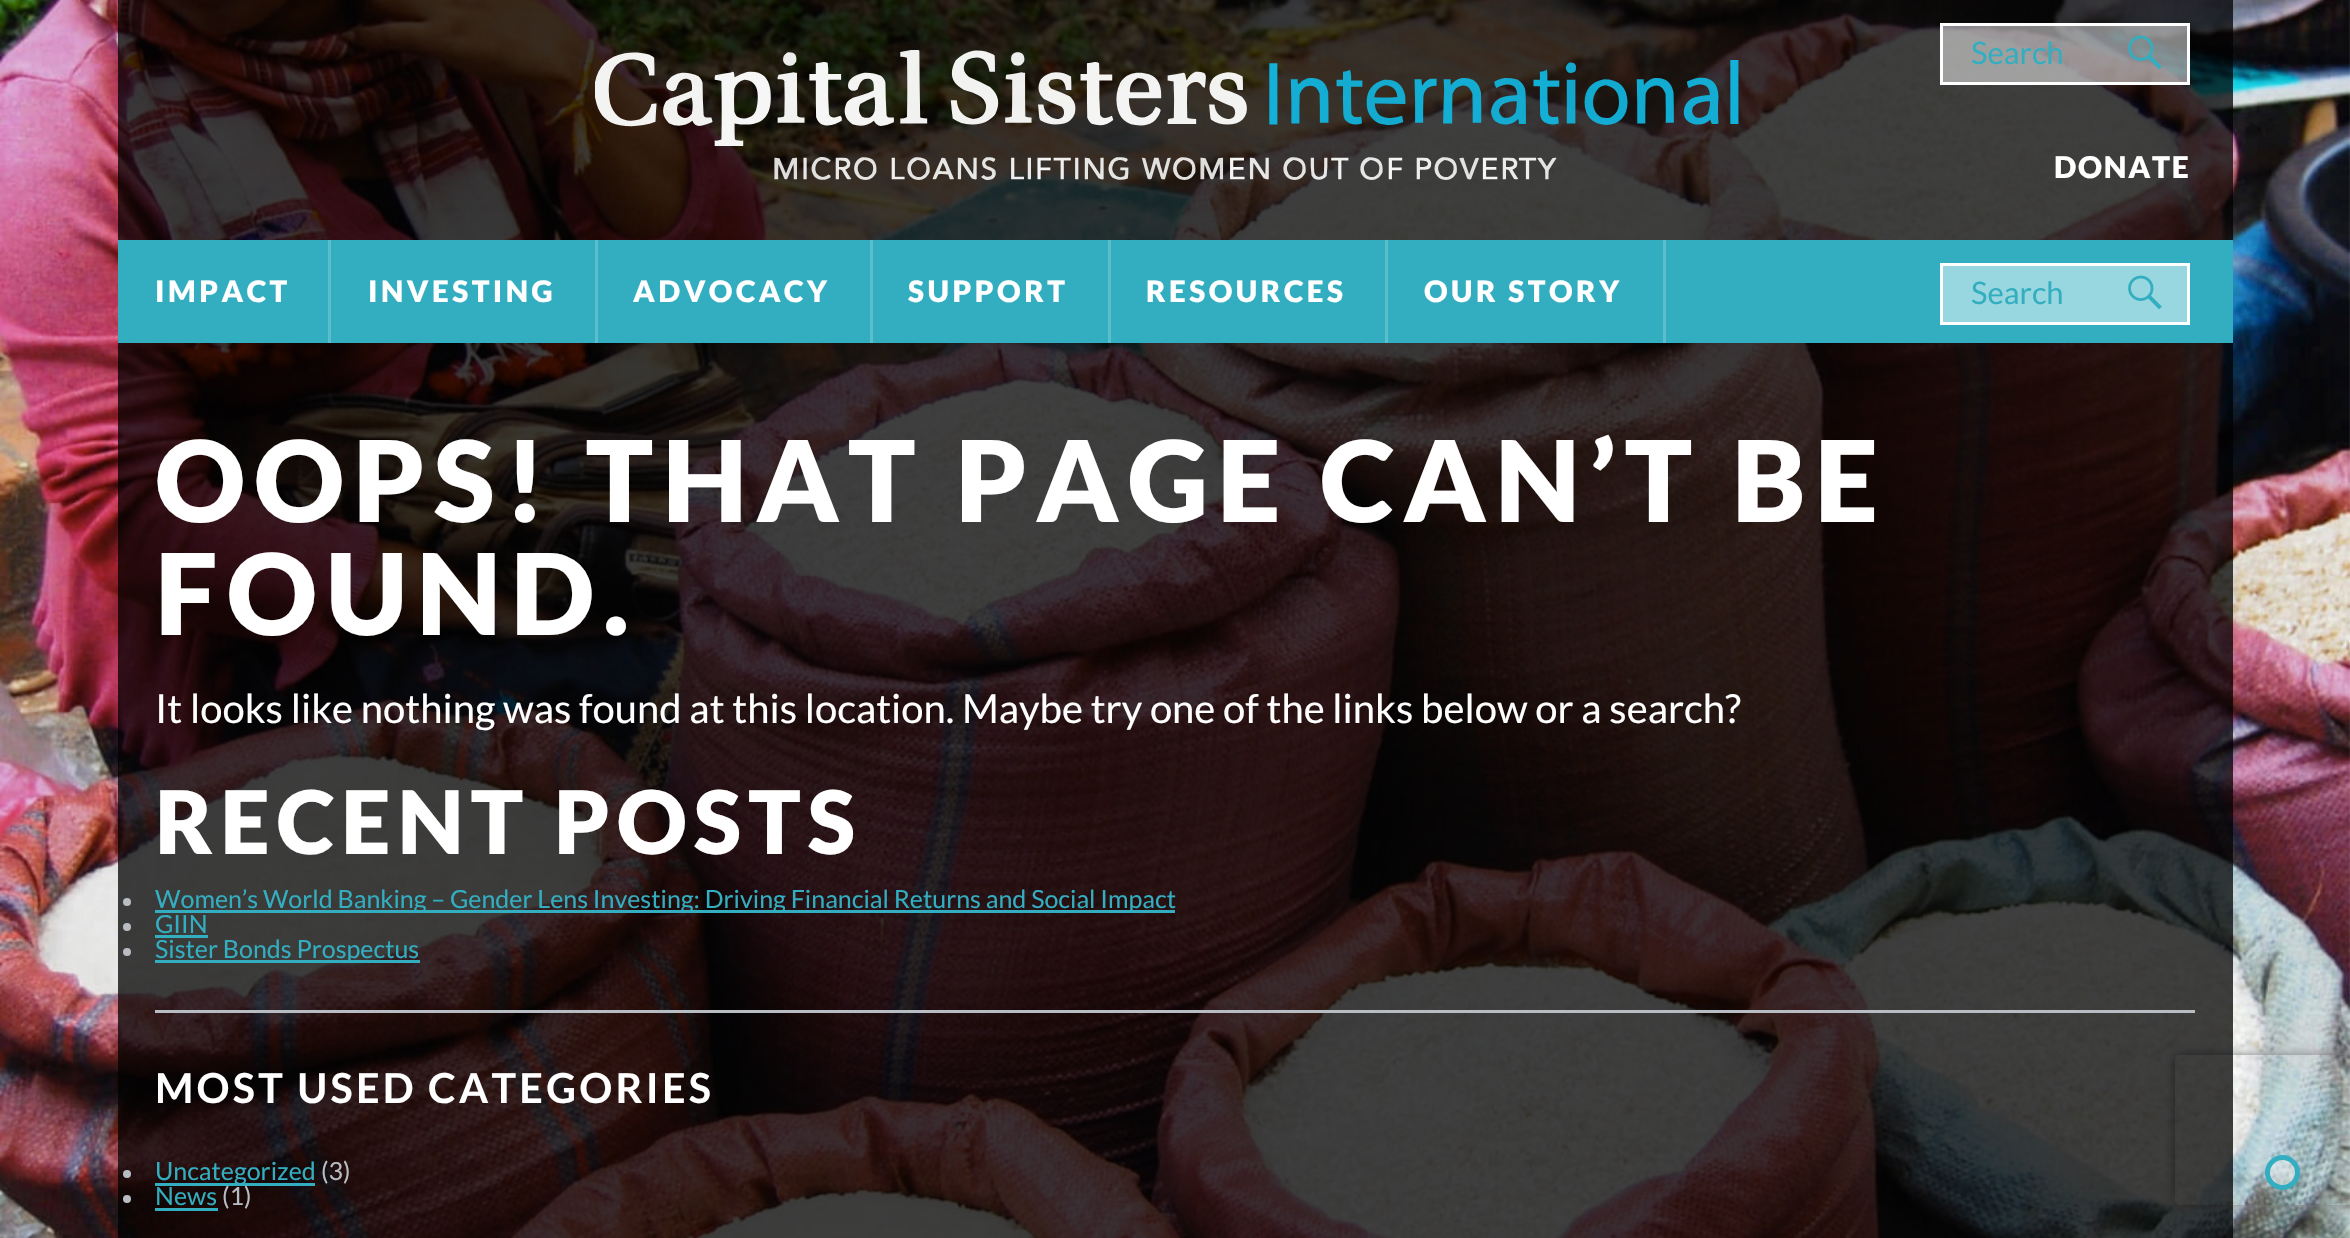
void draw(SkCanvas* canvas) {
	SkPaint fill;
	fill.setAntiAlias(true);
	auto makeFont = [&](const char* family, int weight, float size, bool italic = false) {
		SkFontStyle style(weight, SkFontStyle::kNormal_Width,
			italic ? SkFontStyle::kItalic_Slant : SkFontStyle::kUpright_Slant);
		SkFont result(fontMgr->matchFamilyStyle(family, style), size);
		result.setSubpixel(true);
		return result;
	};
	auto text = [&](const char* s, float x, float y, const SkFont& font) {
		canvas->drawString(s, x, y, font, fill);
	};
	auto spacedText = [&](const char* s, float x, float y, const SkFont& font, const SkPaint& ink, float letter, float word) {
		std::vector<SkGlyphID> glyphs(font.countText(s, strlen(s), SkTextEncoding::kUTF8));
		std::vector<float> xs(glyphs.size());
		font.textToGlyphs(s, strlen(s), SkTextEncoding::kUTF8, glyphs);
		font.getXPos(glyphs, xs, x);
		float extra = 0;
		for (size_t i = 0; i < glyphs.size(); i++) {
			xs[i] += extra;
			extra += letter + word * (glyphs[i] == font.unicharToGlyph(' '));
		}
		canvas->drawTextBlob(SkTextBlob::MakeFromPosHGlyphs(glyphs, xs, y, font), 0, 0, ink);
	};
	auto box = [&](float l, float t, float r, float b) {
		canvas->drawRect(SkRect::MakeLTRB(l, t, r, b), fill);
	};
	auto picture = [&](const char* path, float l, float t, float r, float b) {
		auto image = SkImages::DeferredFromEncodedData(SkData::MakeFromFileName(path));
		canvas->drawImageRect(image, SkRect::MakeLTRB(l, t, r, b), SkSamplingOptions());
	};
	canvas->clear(0xFFFFFFFF);
	picture("image0.png", 0, 0, 2350, 1238);
	fill.setColor(0x80FFFFFF);
	canvas->drawCircle(2282.5f, 1172.5f, 15, fill);
	fill.setStyle(SkPaint::kStroke_Style);
	fill.setStrokeWidth(5);
	fill.setColor(0xFF33AEC0);
	canvas->drawCircle(2282.5f, 1172.5f, 15, fill);
	canvas->save();
	canvas->clipPath(SkPathBuilder(SkPathFillType::kEvenOdd).moveTo(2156, 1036).lineTo(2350, 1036).lineTo(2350, 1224).lineTo(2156, 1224).close().moveTo(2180, 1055).lineTo(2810, 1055).cubicTo(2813, 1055, 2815, 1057, 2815, 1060).lineTo(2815, 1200).cubicTo(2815, 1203, 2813, 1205, 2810, 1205).lineTo(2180, 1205).cubicTo(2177, 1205, 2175, 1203, 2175, 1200).lineTo(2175, 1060).cubicTo(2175, 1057, 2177, 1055, 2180, 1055).close().detach(), true);
	fill.setStyle(SkPaint::kFill_Style);
	fill.setColor(0xFF808080);
	fill.setMaskFilter(SkMaskFilter::MakeBlur(kNormal_SkBlurStyle, 6));
	canvas->drawRoundRect(SkRect::MakeLTRB(2175, 1055, 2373, 1205), 5, 5, fill);
	fill.setMaskFilter(nullptr);
	canvas->restore();
	fill.setColor(0xBF000000);
	box(118, 0, 2233, 1238);
	fill.setColor(0x80FFFFFF);
	canvas->drawRect(SkRect::MakeLTRB(1941.5f, 24.5f, 2188.5f, 83.5f), fill);
	fill.setStyle(SkPaint::kStroke_Style);
	fill.setStrokeWidth(3);
	fill.setColor(0xFFFFFFFF);
	canvas->drawRect(SkRect::MakeLTRB(1941.5f, 24.5f, 2188.5f, 83.5f), fill);
	picture("image1.png", 2128, 35, 2162, 70);
	fill.setStyle(SkPaint::kFill_Style);
	fill.setColor(0xFFB8BDC4);
	box(155, 1010, 2195, 1013);
	canvas->drawCircle(127, 902, 4, fill);
	fill.setColor(0xFF33AEC0);
	box(155, 910, 1175, 913);
	fill.setColor(0xFFB8BDC4);
	canvas->drawCircle(127, 927, 4, fill);
	fill.setColor(0xFF33AEC0);
	box(155, 935, 208, 938);
	fill.setColor(0xFFB8BDC4);
	canvas->drawCircle(127, 952, 4, fill);
	fill.setColor(0xFF33AEC0);
	box(155, 960, 420, 963);
	fill.setColor(0xFFB8BDC4);
	canvas->drawCircle(127, 1174, 4, fill);
	fill.setColor(0xFF33AEC0);
	box(155, 1183, 315, 1186);
	fill.setColor(0xFFB8BDC4);
	canvas->drawCircle(127, 1199, 4, fill);
	fill.setColor(0xFF33AEC0);
	box(155, 1208, 218, 1211);
	picture("image2.png", 595, 50, 1739, 180);
	box(118, 240, 2233, 343);
	fill.setColor(0xFF5CBECD);
	box(328, 240, 331, 343);
	box(595, 240, 598, 343);
	box(870, 240, 873, 343);
	box(1108, 240, 1111, 343);
	box(1385, 240, 1388, 343);
	box(1663, 240, 1666, 343);
	fill.setColor(0xFF99D7E0);
	canvas->drawRect(SkRect::MakeLTRB(1941.5f, 264.5f, 2188.5f, 323.5f), fill);
	fill.setStyle(SkPaint::kStroke_Style);
	fill.setColor(0xFFFFFFFF);
	canvas->drawRect(SkRect::MakeLTRB(1941.5f, 264.5f, 2188.5f, 323.5f), fill);
	picture("image3.png", 2128, 275, 2162, 310);
	auto font1 = makeFont("Lato", 400, 31);
	fill.setStyle(SkPaint::kFill_Style);
	fill.setColor(0xFF33AEC0);
	text("Search", 1971, 64, font1);
	auto font2 = makeFont("Lato", 400, 40);
	fill.setColor(0xFFFFFFFF);
	text("It looks like nothing was found at this location. Maybe try one of the links below or a search?", 155, 723, font2);
	auto font3 = makeFont("Lato", 900, 87.5f);
	spacedText("RECENT POSTS", 155, 854, font3, fill, 7, 0);
	auto font4 = makeFont("Lato", 400, 25);
	fill.setColor(0xFF33AEC0);
	text("Women’s World Banking – Gender Lens Investing: Driving Financial Returns and Social Impact", 155, 908, font4);
	text("GIIN", 155, 933, font4);
	text("Sister Bonds Prospectus", 155, 958, font4);
	auto font5 = makeFont("Lato", 700, 41.25f);
	fill.setColor(0xFFFFFFFF);
	spacedText("MOST USED CATEGORIES", 155, 1103, font5, fill, 3.25f, 0);
	fill.setColor(0xFF33AEC0);
	text("Uncategorized", 155, 1180, font4);
	fill.setColor(0xFFB8BDC4);
	text("(3)", 321, 1180, font4);
	fill.setColor(0xFF33AEC0);
	text("News", 155, 1205, font4);
	fill.setColor(0xFFB8BDC4);
	text("(1)", 222, 1205, font4);
	auto font6 = makeFont("Lato", 900, 112.5f);
	fill.setColor(0xFFFFFFFF);
	spacedText("OOPS! THAT PAGE CAN’T BE", 155, 522, font6, fill, 9, 0);
	spacedText("FOUND.", 155, 635, font6, fill, 9, 0);
	auto font7 = makeFont("Lato", 900, 30);
	spacedText("DONATE", 2054, 178, font7, fill, 1.75f, 0);
	auto font8 = makeFont("Lato", 900, 29.5f);
	spacedText("IMPACT", 155, 302, font8, fill, 3.5f, 0);
	spacedText("INVESTING", 368, 302, font8, fill, 3.5f, 0);
	spacedText("ADVOCACY", 633, 302, font8, fill, 3.5f, 0);
	spacedText("SUPPORT", 908, 302, font8, fill, 3.5f, 0);
	spacedText("RESOURCES", 1146, 302, font8, fill, 3.5f, 0);
	spacedText("OUR STORY", 1424, 302, font8, fill, 3.5f, 0);
	fill.setColor(0xFF33AEC0);
	text("Search", 1971, 304, font1);
}
